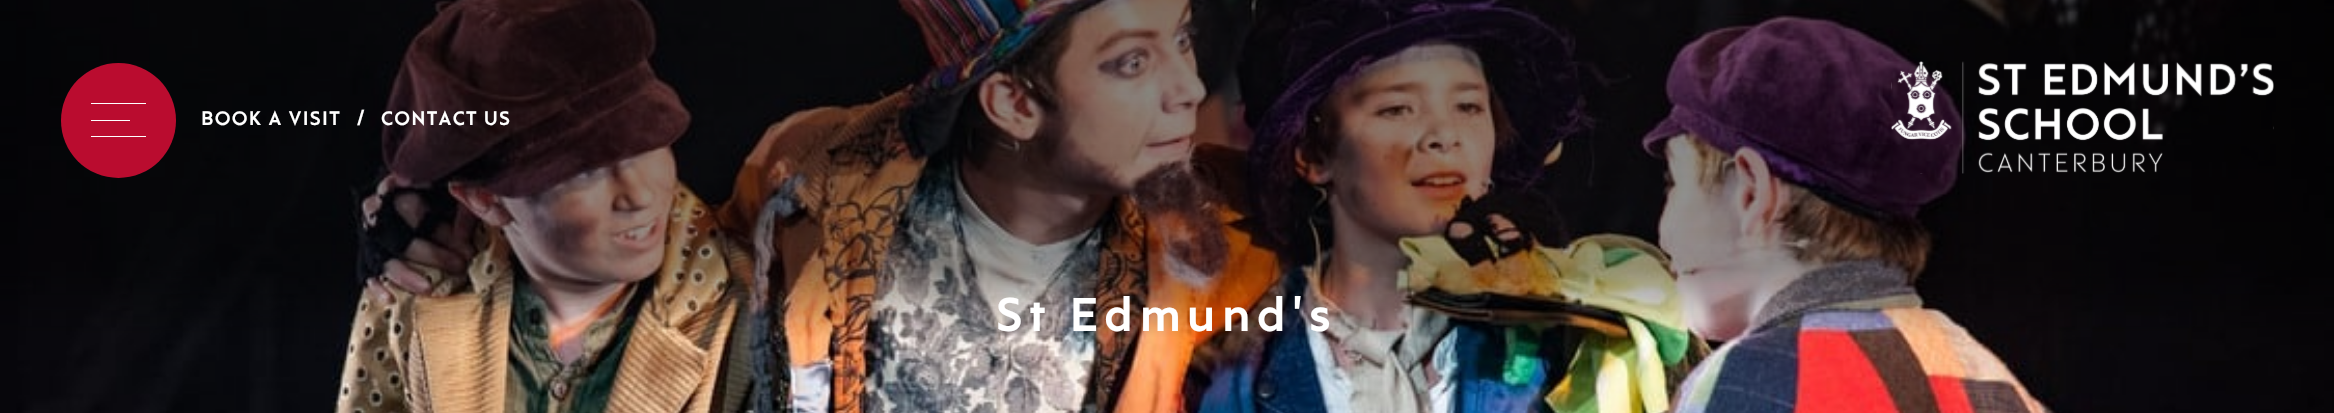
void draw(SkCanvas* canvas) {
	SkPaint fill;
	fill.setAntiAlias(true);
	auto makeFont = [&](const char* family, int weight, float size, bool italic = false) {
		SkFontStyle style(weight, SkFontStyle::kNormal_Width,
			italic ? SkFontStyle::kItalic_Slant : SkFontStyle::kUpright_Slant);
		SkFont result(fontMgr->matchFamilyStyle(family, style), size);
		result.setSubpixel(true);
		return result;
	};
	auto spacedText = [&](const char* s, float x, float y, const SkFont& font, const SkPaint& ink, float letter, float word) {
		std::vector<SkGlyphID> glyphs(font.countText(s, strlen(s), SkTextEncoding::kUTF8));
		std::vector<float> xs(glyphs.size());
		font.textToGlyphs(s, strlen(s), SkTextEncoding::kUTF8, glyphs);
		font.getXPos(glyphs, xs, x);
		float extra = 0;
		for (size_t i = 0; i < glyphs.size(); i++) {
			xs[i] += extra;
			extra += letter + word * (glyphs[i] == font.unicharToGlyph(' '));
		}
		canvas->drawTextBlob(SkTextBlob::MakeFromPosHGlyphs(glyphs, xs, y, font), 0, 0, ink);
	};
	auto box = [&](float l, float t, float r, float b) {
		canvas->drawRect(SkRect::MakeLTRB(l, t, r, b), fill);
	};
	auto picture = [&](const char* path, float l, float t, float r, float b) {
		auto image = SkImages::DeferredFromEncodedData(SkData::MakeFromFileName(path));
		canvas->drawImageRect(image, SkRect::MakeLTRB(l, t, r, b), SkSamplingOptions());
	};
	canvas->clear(0xFFFFFFFF);
	picture("image1.png", 0, 0, 2334, 413);
	fill.setColor(0xFFBA0C2F);
	canvas->drawCircle(118.5f, 120.5f, 57.5f, fill);
	fill.setColor(0xFFFFFFFF);
	box(91, 103, 146, 104);
	box(91, 120, 130, 121);
	box(91, 136, 146, 137);
	picture("image0.png", 1891, 61, 2274, 174);
	auto font1 = makeFont("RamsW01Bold", 700, 20);
	spacedText("BOOK A VISIT", 201, 125, font1, fill, 1.25f, 0);
	auto font2 = makeFont("RamsW01Bold", 700, 22);
	spacedText("/", 357, 125, font2, fill, 1.25f, 0);
	spacedText("CONTACT US", 381, 125, font1, fill, 1.25f, 0);
	auto font3 = makeFont("RamsW01Bold", 700, 48.5f);
	spacedText("St Edmund's", 996, 331, font3, fill, 6.25f, 0);
}
